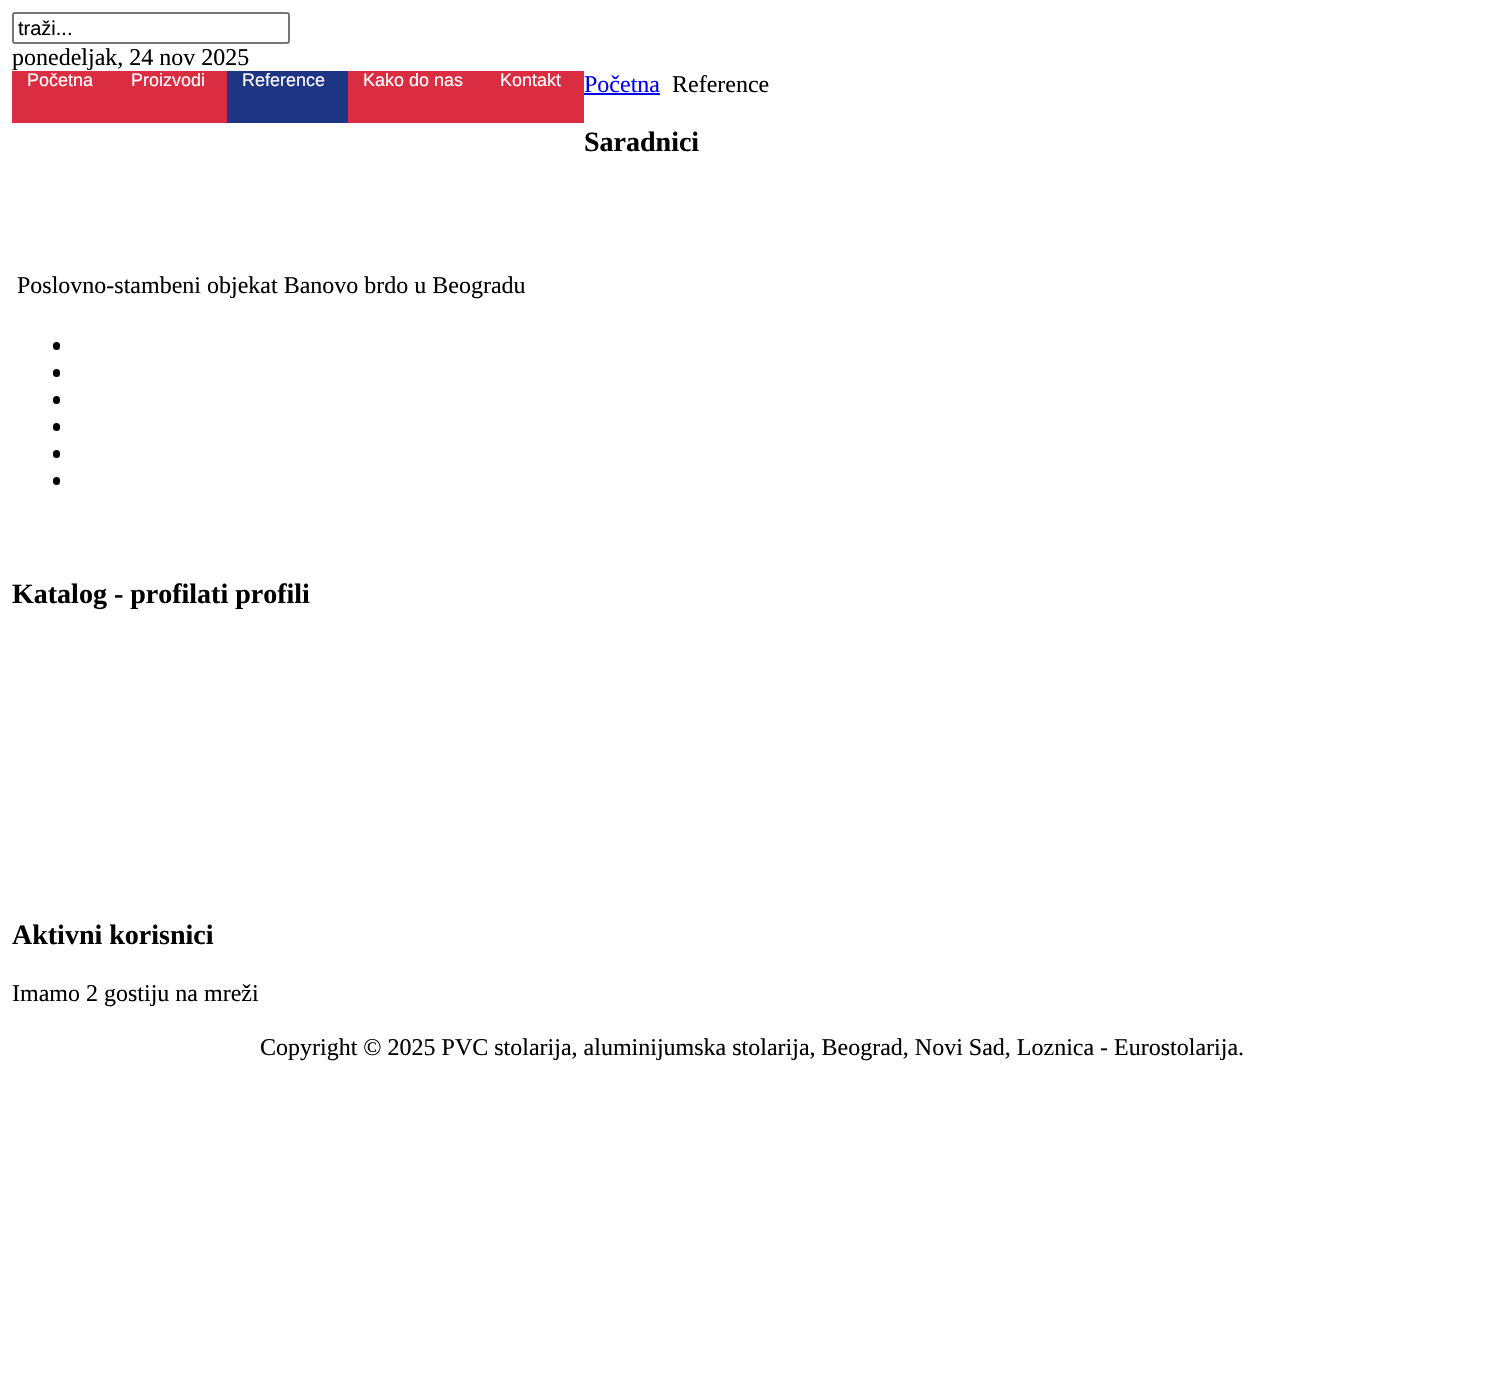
void draw(SkCanvas* canvas) {
	SkPaint fill;
	fill.setAntiAlias(true);
	auto makeFont = [&](const char* family, int weight, float size, bool italic = false) {
		SkFontStyle style(weight, SkFontStyle::kNormal_Width,
			italic ? SkFontStyle::kItalic_Slant : SkFontStyle::kUpright_Slant);
		SkFont result(fontMgr->matchFamilyStyle(family, style), size);
		result.setSubpixel(true);
		return result;
	};
	auto text = [&](const char* s, float x, float y, const SkFont& font) {
		canvas->drawString(s, x, y, font, fill);
	};
	auto box = [&](float l, float t, float r, float b) {
		canvas->drawRect(SkRect::MakeLTRB(l, t, r, b), fill);
	};
	auto roundBox = [&](float l, float t, float r, float b, float radius) {
		canvas->drawRoundRect(SkRect::MakeLTRB(l, t, r, b), radius, radius, fill);
	};
	canvas->clear(0xFFFFFFFF);
	fill.setStyle(SkPaint::kStroke_Style);
	fill.setStrokeWidth(2);
	fill.setColor(0xFF767676);
	canvas->drawRoundRect(SkRect::MakeLTRB(13, 13, 289, 43), 2, 2, fill);
	fill.setStyle(SkPaint::kFill_Style);
	fill.setColor(0xFFDA2D41);
	box(12, 71, 227, 123);
	fill.setColor(0xFF1E3583);
	box(227, 71, 348, 123);
	fill.setColor(0xFFDA2D41);
	box(348, 71, 584, 123);
	fill.setColor(0xFF0000EE);
	box(584, 93, 660, 95);
	fill.setColor(0xFF000000);
	roundBox(53, 342, 60, 350, 3.5f);
	roundBox(53, 369, 60, 377, 3.5f);
	roundBox(53, 396, 60, 404, 3.5f);
	roundBox(53, 423, 60, 431, 3.5f);
	roundBox(53, 450, 60, 458, 3.5f);
	roundBox(53, 477, 60, 485, 3.5f);
	auto font1 = makeFont("Liberation Sans", 400, 20);
	text("traži...", 18, 35, font1);
	auto font2 = makeFont("Liberation Serif", 400, 24);
	text("ponedeljak, 24 nov 2025", 12, 65, font2);
	auto font3 = makeFont("Liberation Sans", 400, 18);
	fill.setColor(0xFFFFFFFF);
	text("Početna", 27, 86, font3);
	text("Proizvodi", 131, 86, font3);
	text("Reference", 242, 86, font3);
	text("Kako do nas", 363, 86, font3);
	text("Kontakt", 500, 86, font3);
	fill.setColor(0xFF0000EE);
	text("Početna", 584, 92, font2);
	fill.setColor(0xFF000000);
	text("Reference", 672, 92, font2);
	auto font4 = makeFont("Liberation Serif", 700, 28);
	text("Saradnici", 584, 151, font4);
	text("Poslovno-stambeni objekat Banovo brdo u Beogradu", 17, 293, font2);
	text("Katalog - profilati profili", 12, 603, font4);
	text("Aktivni korisnici", 12, 944, font4);
	text("Imamo 2 gostiju na mreži", 12, 1001, font2);
	text("Copyright © 2025 PVC stolarija, aluminijumska stolarija, Beograd, Novi Sad, Loznica - Eurostolarija.", 260, 1055, font2);
}
